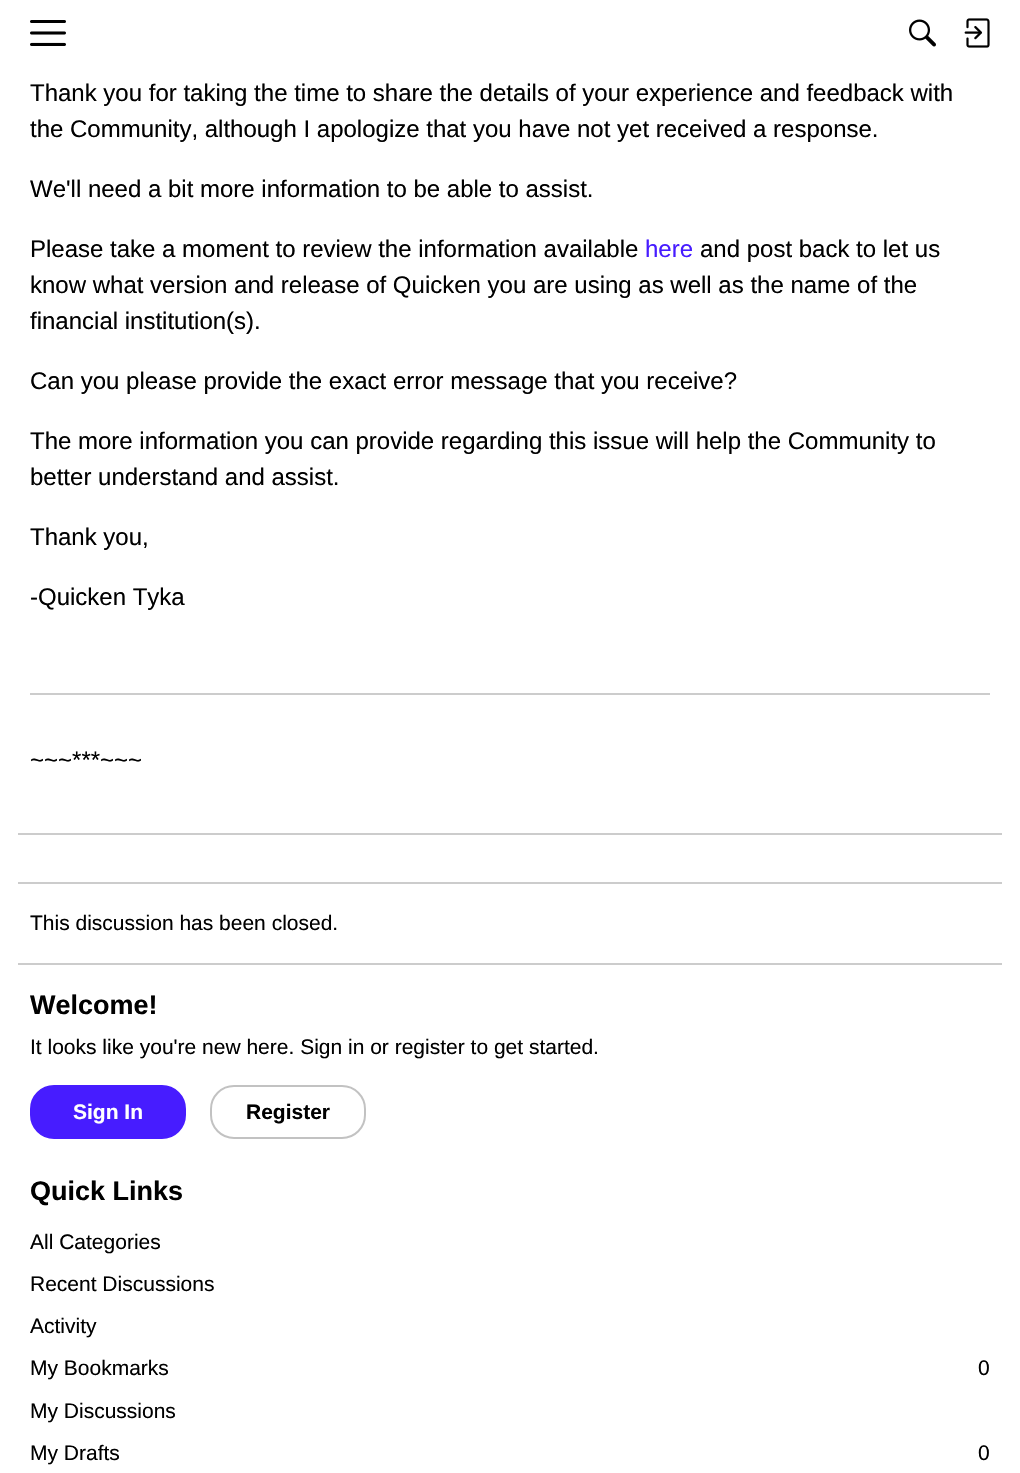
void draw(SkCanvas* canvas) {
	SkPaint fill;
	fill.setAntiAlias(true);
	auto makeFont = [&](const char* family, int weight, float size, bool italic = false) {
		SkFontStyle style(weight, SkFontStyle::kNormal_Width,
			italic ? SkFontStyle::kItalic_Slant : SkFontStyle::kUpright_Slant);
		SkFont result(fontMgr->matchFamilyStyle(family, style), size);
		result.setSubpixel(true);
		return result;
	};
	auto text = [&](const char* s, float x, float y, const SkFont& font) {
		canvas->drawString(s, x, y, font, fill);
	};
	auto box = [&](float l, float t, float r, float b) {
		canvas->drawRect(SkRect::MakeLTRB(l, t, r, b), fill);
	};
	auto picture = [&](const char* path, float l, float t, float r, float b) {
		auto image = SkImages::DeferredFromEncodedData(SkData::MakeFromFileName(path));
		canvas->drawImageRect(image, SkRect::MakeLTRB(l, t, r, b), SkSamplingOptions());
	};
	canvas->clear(0xFFFFFFFF);
	picture("image0.png", 30, 20, 66, 46);
	picture("image1.png", 909, 19, 936, 47);
	picture("image2.png", 964, 18, 990, 48);
	fill.setColor(0xFFCCCCCC);
	box(30, 693, 990, 695);
	box(18, 833, 1002, 835);
	box(18, 882, 1002, 884);
	box(18, 963, 1002, 965);
	fill.setColor(0xFF471CFF);
	canvas->drawRoundRect(SkRect::MakeLTRB(31, 1086, 185, 1138), 23, 23, fill);
	fill.setStyle(SkPaint::kStroke_Style);
	fill.setStrokeWidth(2);
	canvas->drawRoundRect(SkRect::MakeLTRB(31, 1086, 185, 1138), 23, 23, fill);
	fill.setColor(0xFFC2C2C2);
	canvas->drawRoundRect(SkRect::MakeLTRB(211, 1086, 365, 1138), 23, 23, fill);
	auto font1 = makeFont("Liberation Sans", 400, 24);
	fill.setStyle(SkPaint::kFill_Style);
	fill.setColor(0xFF000000);
	text("Thank you for taking the time to share the details of your experience and feedback with", 30, 101, font1);
	text("the Community, although I apologize that you have not yet received a response.", 30, 137, font1);
	text("We'll need a bit more information to be able to assist.", 30, 197, font1);
	text("Please take a moment to review the information available", 30, 257, font1);
	fill.setColor(0xFF471CFF);
	text("here", 645, 257, font1);
	fill.setColor(0xFF000000);
	text("and post back to let us", 700, 257, font1);
	text("know what version and release of Quicken you are using as well as the name of the", 30, 293, font1);
	text("financial institution(s).", 30, 329, font1);
	text("Can you please provide the exact error message that you receive?", 30, 389, font1);
	text("The more information you can provide regarding this issue will help the Community to", 30, 449, font1);
	text("better understand and assist.", 30, 485, font1);
	text("Thank you,", 30, 545, font1);
	text("-Quicken Tyka", 30, 605, font1);
	text("~~~***~~~", 30, 768, font1);
	auto font2 = makeFont("Liberation Sans", 400, 21);
	text("This discussion has been closed.", 30, 930, font2);
	auto font3 = makeFont("Liberation Sans", 700, 27);
	text("Welcome!", 30, 1014, font3);
	text("It looks like you're new here. Sign in or register to get started.", 30, 1054, font2);
	auto font4 = makeFont("Liberation Sans", 700, 21);
	fill.setColor(0xFFFFFFFF);
	text("Sign In", 73, 1119, font4);
	fill.setColor(0xFF000000);
	text("Register", 246, 1119, font4);
	text("Quick Links", 30, 1200, font3);
	text("All Categories", 30, 1249, font2);
	text("Recent Discussions", 30, 1291, font2);
	text("Activity", 30, 1333, font2);
	text("My Bookmarks", 30, 1375, font2);
	text("0", 978, 1375, font2);
	text("My Discussions", 30, 1418, font2);
	text("My Drafts", 30, 1460, font2);
	text("0", 978, 1460, font2);
}
